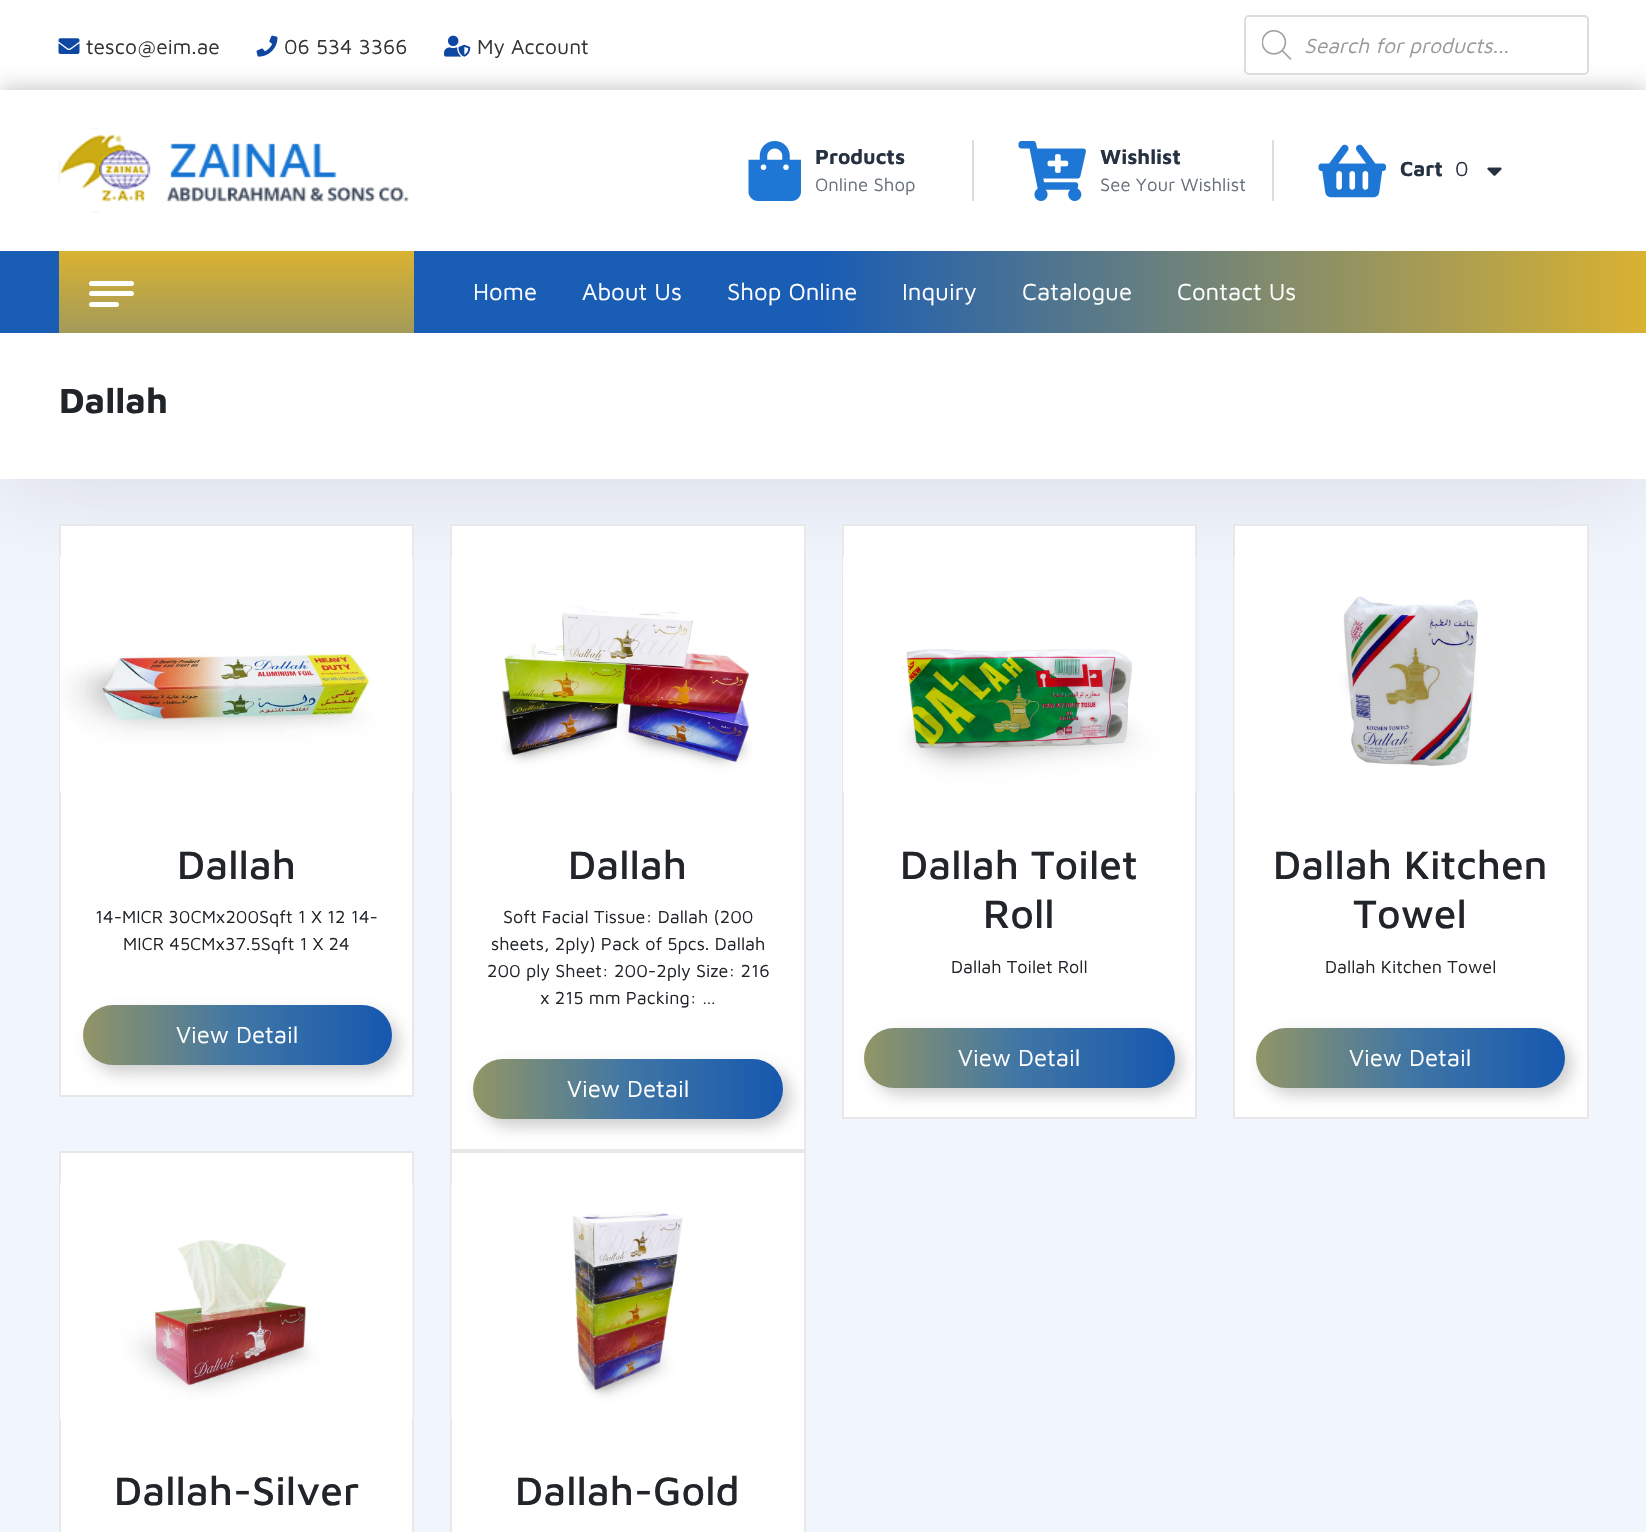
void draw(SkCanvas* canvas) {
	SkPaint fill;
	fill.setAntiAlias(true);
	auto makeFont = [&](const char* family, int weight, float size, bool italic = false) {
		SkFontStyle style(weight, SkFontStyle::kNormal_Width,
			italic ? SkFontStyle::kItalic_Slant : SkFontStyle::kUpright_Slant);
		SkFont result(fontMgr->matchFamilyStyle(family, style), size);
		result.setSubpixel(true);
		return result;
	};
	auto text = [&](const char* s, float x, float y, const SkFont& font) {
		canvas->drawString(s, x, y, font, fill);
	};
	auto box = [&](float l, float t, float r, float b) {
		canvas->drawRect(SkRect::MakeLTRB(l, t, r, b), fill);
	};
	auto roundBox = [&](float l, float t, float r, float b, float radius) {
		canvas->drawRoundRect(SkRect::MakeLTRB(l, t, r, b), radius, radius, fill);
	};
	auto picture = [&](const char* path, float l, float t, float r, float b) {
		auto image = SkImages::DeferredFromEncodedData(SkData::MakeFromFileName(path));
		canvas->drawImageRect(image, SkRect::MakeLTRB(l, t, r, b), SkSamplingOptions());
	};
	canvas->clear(0xFFF1F5FE);
	fill.setColor(0xFFFFFFFF);
	box(0, 0, 1646, 90);
	picture("image0.png", 58, 38, 80, 54);
	fill.setColor(0x42000000);
	fill.setMaskFilter(SkMaskFilter::MakeBlur(kNormal_SkBlurStyle, 11));
	canvas->drawRect(SkRect::MakeLTRB(0, 90, 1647, 251), fill);
	fill.setMaskFilter(nullptr);
	picture("image1.png", 256, 35, 278, 57);
	picture("image2.png", 444, 35, 471, 57);
	fill.setColor(0xFFFFFFFF);
	canvas->drawRoundRect(SkRect::MakeLTRB(1245, 16, 1588, 74), 4, 4, fill);
	fill.setStyle(SkPaint::kStroke_Style);
	fill.setStrokeWidth(2);
	fill.setColor(0xFFDDDDDD);
	canvas->drawRoundRect(SkRect::MakeLTRB(1245, 16, 1588, 74), 4, 4, fill);
	picture("image3.png", 1262, 30, 1292, 60);
	fill.setStyle(SkPaint::kFill_Style);
	fill.setColor(0xFFFFFFFF);
	box(0, 90, 1646, 251);
	picture("image4.png", 58, 127, 409, 213);
	{
		const SkColor colors[] = {0xFF1A5DB4, 0xFF1A5DB4, 0xFFD9B231};
		const float stops[] = {0, 0.5f, 1};
		const SkPoint ends[] = {{0, 292}, {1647, 292}};
		fill.setShader(SkGradientShader::MakeLinear(ends, colors, stops, 3, SkTileMode::kClamp));
		fill.setAlpha(255);
	}
	box(0, 251, 1646, 333);
	canvas->save();
	canvas->clipRect(SkRect::MakeLTRB(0, 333, 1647, 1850));
	fill.setShader(nullptr);
	fill.setColor(0x1F000000);
	fill.setMaskFilter(SkMaskFilter::MakeBlur(kNormal_SkBlurStyle, 52.5f));
	canvas->drawRect(SkRect::MakeLTRB(0, 333, 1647, 479), fill);
	fill.setMaskFilter(nullptr);
	canvas->restore();
	fill.setColor(0xFFDDDDDD);
	box(972, 140, 974, 201);
	picture("image5.png", 748, 141, 801, 201);
	box(1272, 140, 1274, 201);
	picture("image6.png", 1018, 141, 1086, 201);
	picture("image7.png", 1318, 144, 1386, 198);
	picture("image8.png", 1487, 167, 1502, 176);
	{
		const SkColor colors[] = {0xFFD9B231, 0xFFA39B5A};
		const float stops[] = {0, 1};
		const SkPoint ends[] = {{236, 251}, {236, 333}};
		fill.setShader(SkGradientShader::MakeLinear(ends, colors, stops, 2, SkTileMode::kClamp));
		fill.setAlpha(255);
	}
	box(59, 251, 414, 333);
	fill.setShader(nullptr);
	fill.setColor(0xFFFFFFFF);
	roundBox(89, 281, 134, 286, 2.5f);
	roundBox(89, 291, 134, 296, 2.5f);
	roundBox(89, 302, 119, 307, 2.5f);
	box(0, 333, 1646, 479);
	canvas->drawRect(SkRect::MakeLTRB(60, 525, 413, 1096), fill);
	fill.setStyle(SkPaint::kStroke_Style);
	fill.setColor(0xFFE8E8E8);
	canvas->drawRect(SkRect::MakeLTRB(60, 525, 413, 1096), fill);
	picture("image9.png", 60, 556, 413, 792);
	fill.setStyle(SkPaint::kFill_Style);
	fill.setColor(0x30000000);
	fill.setMaskFilter(SkMaskFilter::MakeBlur(kNormal_SkBlurStyle, 7.5f));
	canvas->drawRoundRect(SkRect::MakeLTRB(90, 1013, 399, 1073), 30, 30, fill);
	fill.setMaskFilter(nullptr);
	{
		const SkColor colors[] = {0xFF929566, 0xFF4076A5, 0xFF1658AF};
		const float stops[] = {0, 0.5f, 1};
		const SkPoint ends[] = {{83, 1035}, {392, 1035}};
		fill.setShader(SkGradientShader::MakeLinear(ends, colors, stops, 3, SkTileMode::kClamp));
		fill.setAlpha(255);
	}
	roundBox(83, 1005, 392, 1065, 30);
	fill.setShader(nullptr);
	fill.setColor(0xFFFFFFFF);
	canvas->drawRect(SkRect::MakeLTRB(451, 525, 805, 1150), fill);
	fill.setStyle(SkPaint::kStroke_Style);
	fill.setColor(0xFFE8E8E8);
	canvas->drawRect(SkRect::MakeLTRB(451, 525, 805, 1150), fill);
	picture("image10.png", 451, 556, 752, 792);
	fill.setStyle(SkPaint::kFill_Style);
	fill.setColor(0x30000000);
	fill.setMaskFilter(SkMaskFilter::MakeBlur(kNormal_SkBlurStyle, 7.5f));
	canvas->drawRoundRect(SkRect::MakeLTRB(480, 1067, 791, 1127), 30, 30, fill);
	fill.setMaskFilter(nullptr);
	{
		const SkColor colors[] = {0xFF929566, 0xFF4076A5, 0xFF1658AF};
		const float stops[] = {0, 0.5f, 1};
		const SkPoint ends[] = {{473, 1089}, {783, 1089}};
		fill.setShader(SkGradientShader::MakeLinear(ends, colors, stops, 3, SkTileMode::kClamp));
		fill.setAlpha(255);
	}
	roundBox(473, 1059, 783, 1119, 30);
	fill.setShader(nullptr);
	fill.setColor(0xFFFFFFFF);
	canvas->drawRect(SkRect::MakeLTRB(843, 525, 1196, 1118), fill);
	fill.setStyle(SkPaint::kStroke_Style);
	fill.setColor(0xFFE8E8E8);
	canvas->drawRect(SkRect::MakeLTRB(843, 525, 1196, 1118), fill);
	picture("image11.png", 843, 556, 1196, 792);
	fill.setStyle(SkPaint::kFill_Style);
	fill.setColor(0x30000000);
	fill.setMaskFilter(SkMaskFilter::MakeBlur(kNormal_SkBlurStyle, 7.5f));
	canvas->drawRoundRect(SkRect::MakeLTRB(872, 1035, 1182, 1095), 30, 30, fill);
	fill.setMaskFilter(nullptr);
	{
		const SkColor colors[] = {0xFF929566, 0xFF4076A5, 0xFF1658AF};
		const float stops[] = {0, 0.5f, 1};
		const SkPoint ends[] = {{864, 1058}, {1175, 1058}};
		fill.setShader(SkGradientShader::MakeLinear(ends, colors, stops, 3, SkTileMode::kClamp));
		fill.setAlpha(255);
	}
	roundBox(864, 1028, 1175, 1088, 30);
	fill.setShader(nullptr);
	fill.setColor(0xFFFFFFFF);
	canvas->drawRect(SkRect::MakeLTRB(1234, 525, 1588, 1118), fill);
	fill.setStyle(SkPaint::kStroke_Style);
	fill.setColor(0xFFE8E8E8);
	canvas->drawRect(SkRect::MakeLTRB(1234, 525, 1588, 1118), fill);
	picture("image12.png", 1234, 556, 1478, 792);
	fill.setStyle(SkPaint::kFill_Style);
	fill.setColor(0x30000000);
	fill.setMaskFilter(SkMaskFilter::MakeBlur(kNormal_SkBlurStyle, 7.5f));
	canvas->drawRoundRect(SkRect::MakeLTRB(1263, 1035, 1572, 1095), 30, 30, fill);
	fill.setMaskFilter(nullptr);
	{
		const SkColor colors[] = {0xFF929566, 0xFF4076A5, 0xFF1658AF};
		const float stops[] = {0, 0.5f, 1};
		const SkPoint ends[] = {{1256, 1058}, {1565, 1058}};
		fill.setShader(SkGradientShader::MakeLinear(ends, colors, stops, 3, SkTileMode::kClamp));
		fill.setAlpha(255);
	}
	roundBox(1256, 1028, 1565, 1088, 30);
	fill.setShader(nullptr);
	fill.setColor(0xFFFFFFFF);
	canvas->drawRect(SkRect::MakeLTRB(60, 1152, 413, 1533), fill);
	fill.setStyle(SkPaint::kStroke_Style);
	fill.setColor(0xFFE8E8E8);
	canvas->drawRect(SkRect::MakeLTRB(60, 1152, 413, 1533), fill);
	picture("image13.png", 60, 1183, 413, 1419);
	fill.setStyle(SkPaint::kFill_Style);
	fill.setColor(0xFFFFFFFF);
	canvas->drawRect(SkRect::MakeLTRB(451, 1152, 805, 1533), fill);
	fill.setStyle(SkPaint::kStroke_Style);
	fill.setColor(0xFFE8E8E8);
	canvas->drawRect(SkRect::MakeLTRB(451, 1152, 805, 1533), fill);
	picture("image14.png", 451, 1183, 683, 1419);
	auto font1 = makeFont("Maven Pro", 400, 21);
	fill.setStyle(SkPaint::kFill_Style);
	fill.setColor(0xFF333333);
	text("tesco@eim.ae", 86, 54, font1);
	text("06 534 3366", 284, 54, font1);
	text("My Account", 477, 54, font1);
	auto font2 = makeFont("Maven Pro", 400, 21, true);
	fill.setColor(0xFF999999);
	text("Search for products...", 1304, 53, font2);
	auto font3 = makeFont("Maven Pro", 700, 21);
	fill.setColor(0xFF263242);
	text("Products", 815, 164, font3);
	auto font4 = makeFont("Maven Pro", 400, 18.5f);
	fill.setColor(0xFF67707B);
	text("Online Shop", 815, 191, font4);
	fill.setColor(0xFF263242);
	text("Wishlist", 1100, 164, font3);
	fill.setColor(0xFF67707B);
	text("See Your Wishlist", 1100, 191, font4);
	fill.setColor(0xFF263242);
	text("Cart", 1400, 176, font3);
	text("0", 1455, 176, font1);
	auto font5 = makeFont("Maven Pro", 400, 24);
	fill.setColor(0xFFFFFFFF);
	text("Home", 473, 300, font5);
	text("About Us", 582, 300, font5);
	text("Shop Online", 727, 300, font5);
	text("Inquiry", 902, 300, font5);
	text("Catalogue", 1022, 300, font5);
	text("Contact Us", 1177, 300, font5);
	auto font6 = makeFont("Maven Pro", 700, 36);
	fill.setColor(0xFF212529);
	text("Dallah", 59, 413, font6);
	auto font7 = makeFont("Maven Pro", 500, 41);
	text("Dallah", 177, 879, font7);
	auto font8 = makeFont("Maven Pro", 400, 18);
	text("14-MICR 30CMx200Sqft 1 X 12 14-", 95, 923, font8);
	text("MICR 45CMx37.5Sqft 1 X 24", 123, 950, font8);
	fill.setColor(0xFFFFFFFF);
	text("View Detail", 176, 1043, font5);
	fill.setColor(0xFF212529);
	text("Dallah", 568, 879, font7);
	text("Soft Facial Tissue: Dallah (200", 503, 923, font8);
	text("sheets, 2ply) Pack of 5pcs. Dallah", 491, 950, font8);
	text("200 ply Sheet: 200-2ply Size: 216", 487, 977, font8);
	text("x 215 mm Packing: …", 540, 1004, font8);
	fill.setColor(0xFFFFFFFF);
	text("View Detail", 567, 1097, font5);
	fill.setColor(0xFF212529);
	text("Dallah Toilet", 900, 879, font7);
	text("Roll", 983, 928, font7);
	text("Dallah Toilet Roll", 951, 973, font8);
	fill.setColor(0xFFFFFFFF);
	text("View Detail", 958, 1066, font5);
	fill.setColor(0xFF212529);
	text("Dallah Kitchen", 1273, 879, font7);
	text("Towel", 1353, 928, font7);
	text("Dallah Kitchen Towel", 1325, 973, font8);
	fill.setColor(0xFFFFFFFF);
	text("View Detail", 1349, 1066, font5);
	fill.setColor(0xFF212529);
	text("Dallah-Silver", 114, 1505, font7);
	text("Dallah-Gold", 515, 1505, font7);
}
